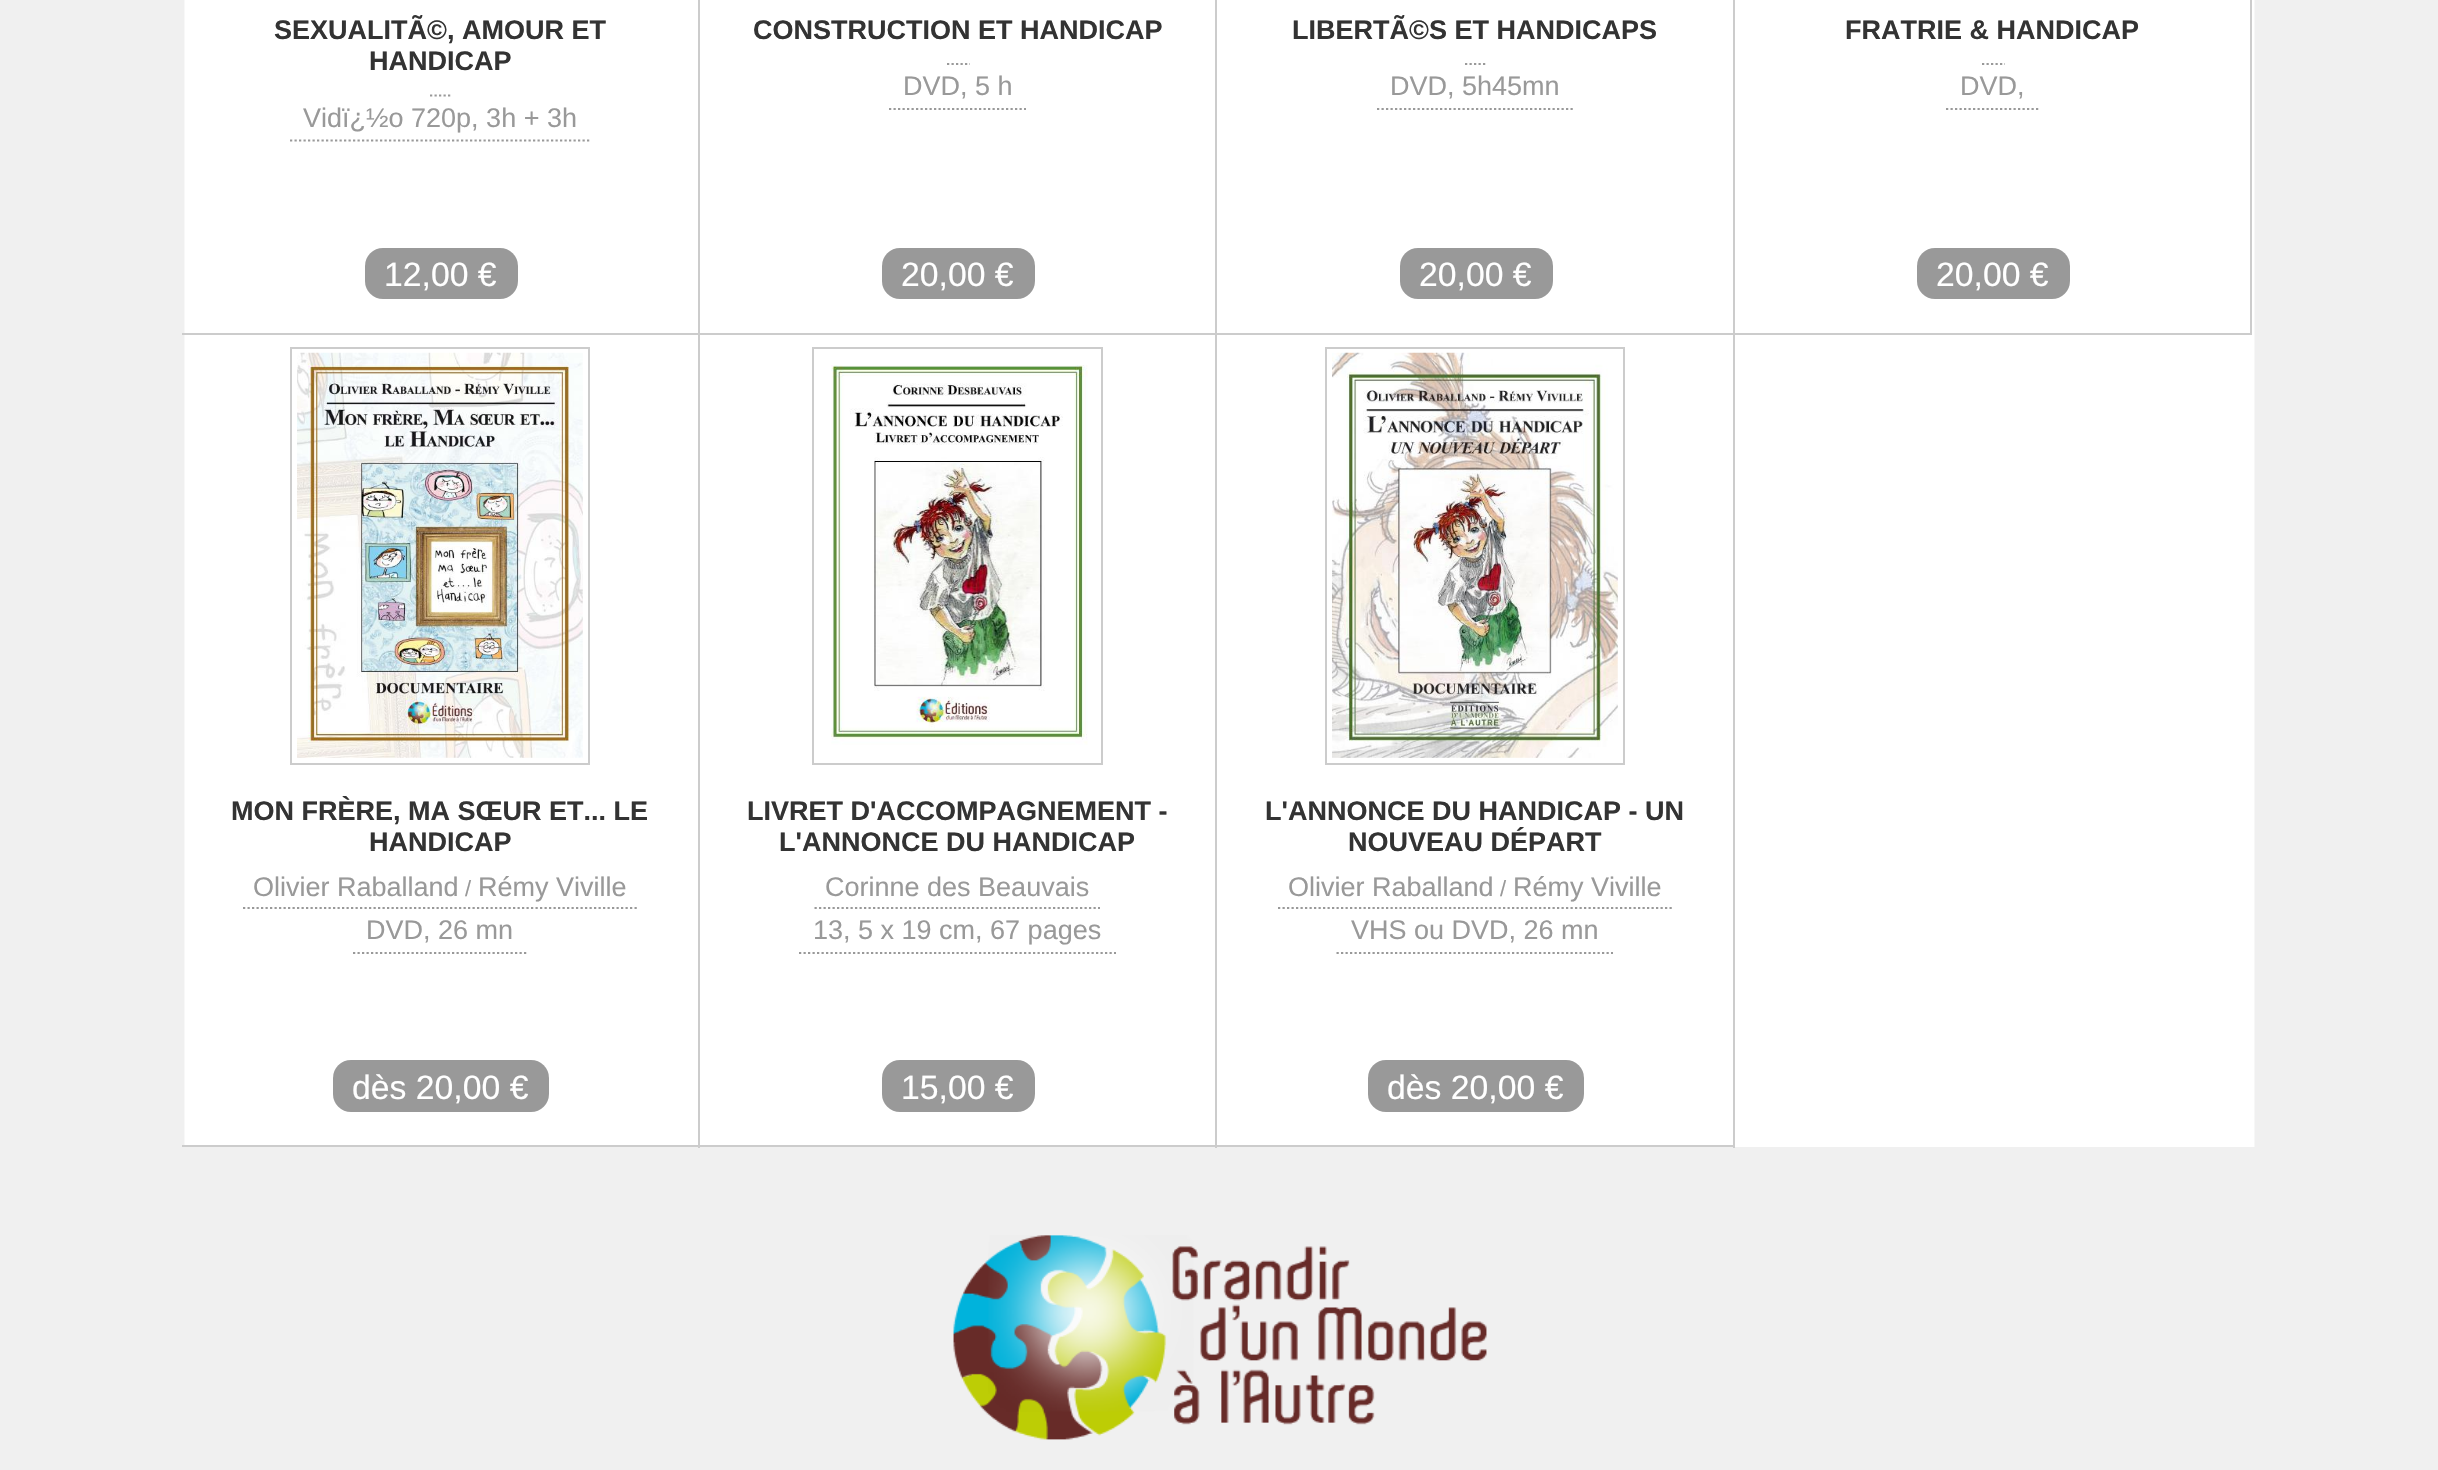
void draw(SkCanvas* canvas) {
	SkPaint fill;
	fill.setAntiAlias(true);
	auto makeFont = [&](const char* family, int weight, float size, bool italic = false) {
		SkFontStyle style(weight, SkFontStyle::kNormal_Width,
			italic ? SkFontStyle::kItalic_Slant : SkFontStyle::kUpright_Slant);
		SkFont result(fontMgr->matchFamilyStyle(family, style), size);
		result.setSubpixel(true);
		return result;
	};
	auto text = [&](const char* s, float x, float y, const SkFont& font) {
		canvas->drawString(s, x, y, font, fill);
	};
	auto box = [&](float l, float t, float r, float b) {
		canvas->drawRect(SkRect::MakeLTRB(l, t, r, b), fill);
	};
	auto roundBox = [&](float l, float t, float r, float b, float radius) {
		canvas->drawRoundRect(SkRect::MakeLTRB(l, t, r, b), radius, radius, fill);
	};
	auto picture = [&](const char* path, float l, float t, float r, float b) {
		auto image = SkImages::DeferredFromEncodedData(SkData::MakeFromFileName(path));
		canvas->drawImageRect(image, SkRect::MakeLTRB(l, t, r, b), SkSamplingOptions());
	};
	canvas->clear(0xFFF0F0F0);
	picture("image0.png", 184, 0, 2255, 1147);
	fill.setColor(0xFFCCCCCC);
	box(698, 0, 700, 1148);
	box(182, 333, 700, 335);
	fill.setStyle(SkPaint::kStroke_Style);
	fill.setStrokeWidth(2.2f);
	fill.setColor(0xFF999999);
	fill.setPathEffect(SkDashPathEffect::Make({{2.25f, 2.25f}}, 0));
	canvas->drawPath(SkPathBuilder().moveTo(430, 95.5f).lineTo(452, 95.5f).detach(), fill);
	fill.setPathEffect(nullptr);
	fill.setPathEffect(SkDashPathEffect::Make({{2.25f, 2.25f}}, 0));
	canvas->drawPath(SkPathBuilder().moveTo(290, 140.5f).lineTo(589.5f, 140.5f).detach(), fill);
	fill.setPathEffect(nullptr);
	fill.setStyle(SkPaint::kFill_Style);
	roundBox(365, 248, 518, 299, 18);
	fill.setColor(0xFFCCCCCC);
	box(1215, 0, 1217, 1148);
	box(700, 333, 1217, 335);
	fill.setStyle(SkPaint::kStroke_Style);
	fill.setColor(0xFF999999);
	fill.setPathEffect(SkDashPathEffect::Make({{2.25f, 2.25f}}, 0));
	canvas->drawPath(SkPathBuilder().moveTo(947, 64).lineTo(970, 64).detach(), fill);
	fill.setPathEffect(nullptr);
	fill.setPathEffect(SkDashPathEffect::Make({{2.25f, 2.25f}}, 0));
	canvas->drawPath(SkPathBuilder().moveTo(889, 109).lineTo(1026, 109).detach(), fill);
	fill.setPathEffect(nullptr);
	fill.setStyle(SkPaint::kFill_Style);
	roundBox(882, 248, 1035, 299, 18);
	fill.setColor(0xFFCCCCCC);
	box(1733, 0, 1735, 1148);
	box(1217, 333, 1735, 335);
	fill.setStyle(SkPaint::kStroke_Style);
	fill.setColor(0xFF999999);
	fill.setPathEffect(SkDashPathEffect::Make({{2.25f, 2.25f}}, 0));
	canvas->drawPath(SkPathBuilder().moveTo(1465, 64).lineTo(1487, 64).detach(), fill);
	fill.setPathEffect(nullptr);
	fill.setPathEffect(SkDashPathEffect::Make({{2.25f, 2.25f}}, 0));
	canvas->drawPath(SkPathBuilder().moveTo(1377, 109).lineTo(1573, 109).detach(), fill);
	fill.setPathEffect(nullptr);
	fill.setStyle(SkPaint::kFill_Style);
	roundBox(1400, 248, 1553, 299, 18);
	fill.setColor(0xFFCCCCCC);
	box(2250, 0, 2252, 335);
	box(1735, 333, 2252, 335);
	fill.setStyle(SkPaint::kStroke_Style);
	fill.setColor(0xFF999999);
	fill.setPathEffect(SkDashPathEffect::Make({{2.25f, 2.25f}}, 0));
	canvas->drawPath(SkPathBuilder().moveTo(1982, 64).lineTo(2005, 64).detach(), fill);
	fill.setPathEffect(nullptr);
	fill.setPathEffect(SkDashPathEffect::Make({{2.25f, 2.25f}}, 0));
	canvas->drawPath(SkPathBuilder().moveTo(1946, 109).lineTo(2038.5f, 109).detach(), fill);
	fill.setPathEffect(nullptr);
	fill.setStyle(SkPaint::kFill_Style);
	roundBox(1917, 248, 2070, 299, 18);
	fill.setColor(0xFFCCCCCC);
	box(182, 1145, 1735, 1147);
	fill.setStyle(SkPaint::kStroke_Style);
	fill.setStrokeWidth(2);
	canvas->drawRect(SkRect::MakeLTRB(291, 348, 589, 764), fill);
	picture("image1.png", 297, 352, 583, 758);
	fill.setStrokeWidth(2.2f);
	fill.setColor(0xFF999999);
	fill.setPathEffect(SkDashPathEffect::Make({{2.25f, 2.25f}}, 0));
	canvas->drawPath(SkPathBuilder().moveTo(243, 908).lineTo(637, 908).detach(), fill);
	fill.setPathEffect(nullptr);
	fill.setPathEffect(SkDashPathEffect::Make({{2.25f, 2.25f}}, 0));
	canvas->drawPath(SkPathBuilder().moveTo(353, 953).lineTo(526.5f, 953).detach(), fill);
	fill.setPathEffect(nullptr);
	fill.setStyle(SkPaint::kFill_Style);
	roundBox(333, 1060, 549, 1112, 18);
	fill.setStyle(SkPaint::kStroke_Style);
	fill.setStrokeWidth(2);
	fill.setColor(0xFFCCCCCC);
	canvas->drawRect(SkRect::MakeLTRB(813, 348, 1102, 764), fill);
	picture("image2.png", 831, 365, 1088, 745);
	fill.setStrokeWidth(2.2f);
	fill.setColor(0xFF999999);
	fill.setPathEffect(SkDashPathEffect::Make({{2.25f, 2.25f}}, 0));
	canvas->drawPath(SkPathBuilder().moveTo(814.5f, 908).lineTo(1100, 908).detach(), fill);
	fill.setPathEffect(nullptr);
	fill.setPathEffect(SkDashPathEffect::Make({{2.25f, 2.25f}}, 0));
	canvas->drawPath(SkPathBuilder().moveTo(799, 953).lineTo(1116, 953).detach(), fill);
	fill.setPathEffect(nullptr);
	fill.setStyle(SkPaint::kFill_Style);
	roundBox(882, 1060, 1035, 1112, 18);
	fill.setStyle(SkPaint::kStroke_Style);
	fill.setStrokeWidth(2);
	fill.setColor(0xFFCCCCCC);
	canvas->drawRect(SkRect::MakeLTRB(1326, 348, 1624, 764), fill);
	picture("image3.png", 1332, 352, 1618, 758);
	fill.setStrokeWidth(2.2f);
	fill.setColor(0xFF999999);
	fill.setPathEffect(SkDashPathEffect::Make({{2.25f, 2.25f}}, 0));
	canvas->drawPath(SkPathBuilder().moveTo(1278, 908).lineTo(1672, 908).detach(), fill);
	fill.setPathEffect(nullptr);
	fill.setPathEffect(SkDashPathEffect::Make({{2.25f, 2.25f}}, 0));
	canvas->drawPath(SkPathBuilder().moveTo(1336.5f, 953).lineTo(1613, 953).detach(), fill);
	fill.setPathEffect(nullptr);
	fill.setStyle(SkPaint::kFill_Style);
	roundBox(1368, 1060, 1584, 1112, 18);
	picture("image4.png", 953, 1235, 1487, 1440);
	auto font1 = makeFont("Liberation Sans", 700, 27);
	fill.setColor(0xFF333333);
	text("SEXUALITÃ©, AMOUR ET", 274, 39, font1);
	text("HANDICAP", 369, 70, font1);
	auto font2 = makeFont("Liberation Sans", 400, 27);
	fill.setColor(0xFF999999);
	text("Vidï¿½o 720p, 3h + 3h", 303, 127, font2);
	auto font3 = makeFont("Liberation Sans", 400, 33.75f);
	fill.setColor(0xFFFFFFFF);
	text("12,00 €", 384, 286, font3);
	fill.setColor(0xFF333333);
	text("CONSTRUCTION ET HANDICAP", 753, 39, font1);
	fill.setColor(0xFF999999);
	text("DVD, 5 h", 903, 95, font2);
	fill.setColor(0xFFFFFFFF);
	text("20,00 €", 901, 286, font3);
	fill.setColor(0xFF333333);
	text("LIBERTÃ©S ET HANDICAPS", 1292, 39, font1);
	fill.setColor(0xFF999999);
	text("DVD, 5h45mn", 1390, 95, font2);
	fill.setColor(0xFFFFFFFF);
	text("20,00 €", 1419, 286, font3);
	fill.setColor(0xFF333333);
	text("FRATRIE & HANDICAP", 1845, 39, font1);
	fill.setColor(0xFF999999);
	text("DVD,", 1960, 95, font2);
	fill.setColor(0xFFFFFFFF);
	text("20,00 €", 1936, 286, font3);
	fill.setColor(0xFF333333);
	text("MON FRÈRE, MA SŒUR ET... LE", 231, 820, font1);
	text("HANDICAP", 369, 851, font1);
	fill.setColor(0xFF999999);
	text("Olivier Raballand", 253, 896, font2);
	auto font4 = makeFont("Liberation Sans", 400, 22);
	text("/", 465, 896, font4);
	text("Rémy Viville", 478, 896, font2);
	text("DVD, 26 mn", 366, 939, font2);
	fill.setColor(0xFFFFFFFF);
	text("dès 20,00 €", 352, 1099, font3);
	fill.setColor(0xFF333333);
	text("LIVRET D'ACCOMPAGNEMENT -", 747, 820, font1);
	text("L'ANNONCE DU HANDICAP", 779, 851, font1);
	fill.setColor(0xFF999999);
	text("Corinne des Beauvais", 825, 896, font2);
	text("13, 5 x 19 cm, 67 pages", 813, 939, font2);
	fill.setColor(0xFFFFFFFF);
	text("15,00 €", 901, 1099, font3);
	fill.setColor(0xFF333333);
	text("L'ANNONCE DU HANDICAP - UN", 1265, 820, font1);
	text("NOUVEAU DÉPART", 1348, 851, font1);
	fill.setColor(0xFF999999);
	text("Olivier Raballand", 1288, 896, font2);
	text("/", 1500, 896, font4);
	text("Rémy Viville", 1513, 896, font2);
	text("VHS ou DVD, 26 mn", 1351, 939, font2);
	fill.setColor(0xFFFFFFFF);
	text("dès 20,00 €", 1387, 1099, font3);
}
